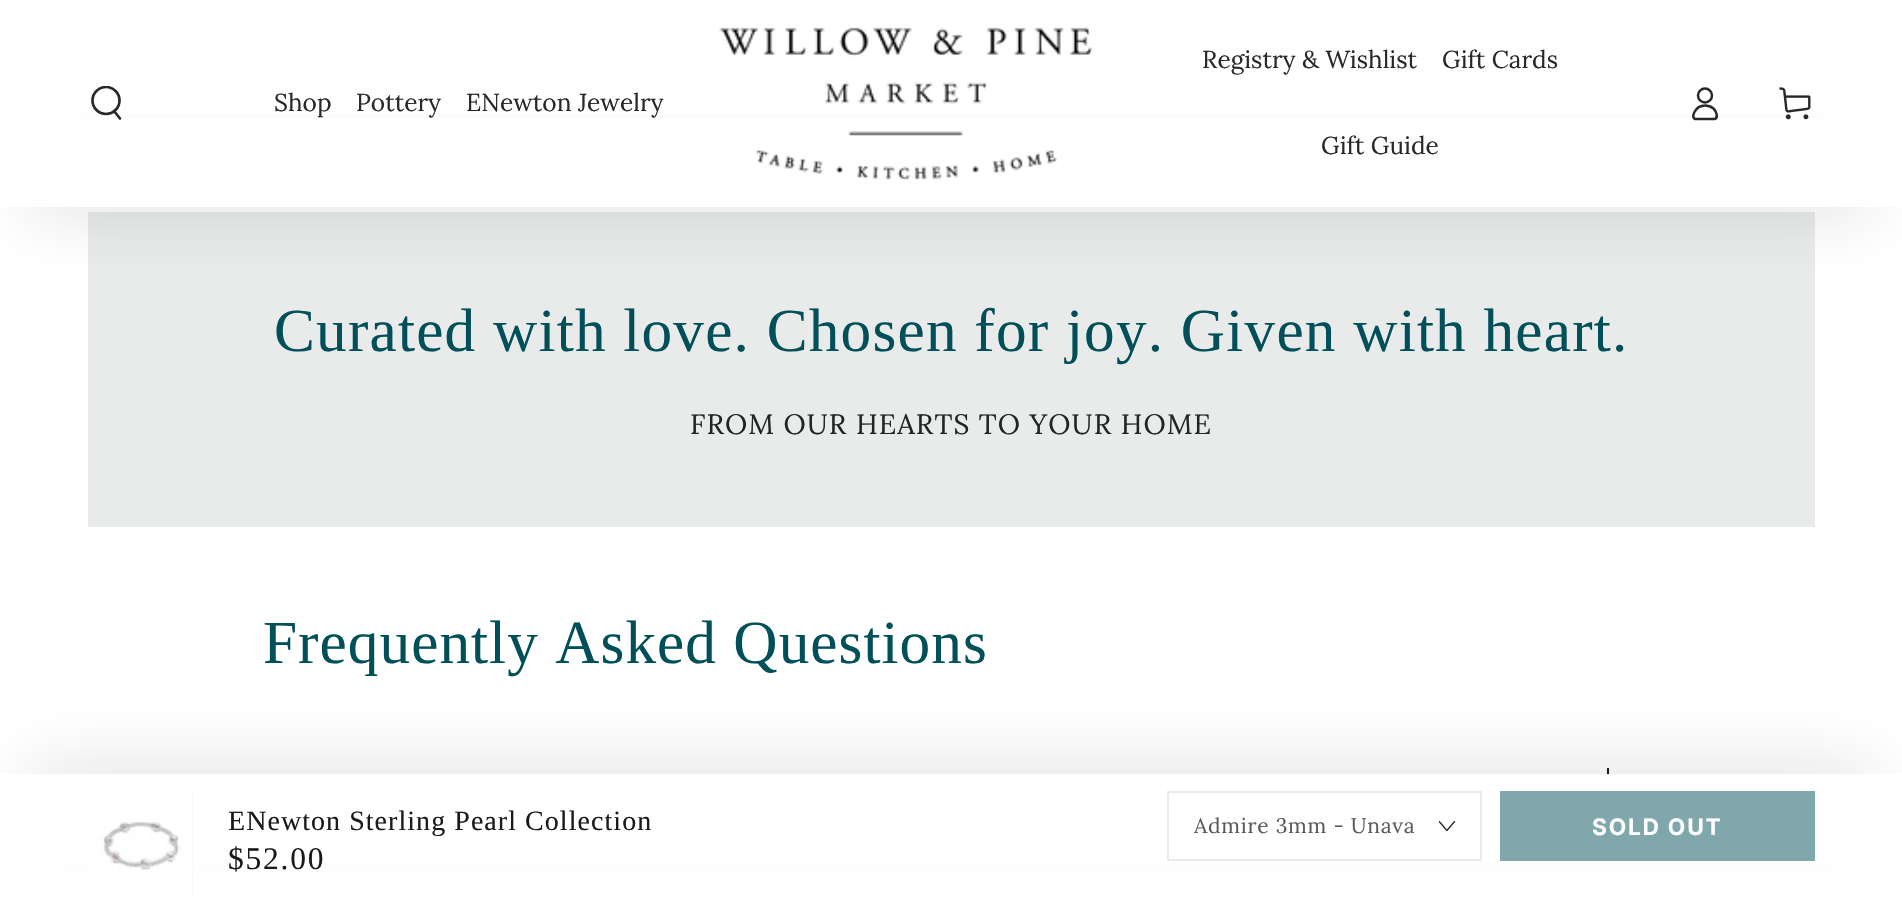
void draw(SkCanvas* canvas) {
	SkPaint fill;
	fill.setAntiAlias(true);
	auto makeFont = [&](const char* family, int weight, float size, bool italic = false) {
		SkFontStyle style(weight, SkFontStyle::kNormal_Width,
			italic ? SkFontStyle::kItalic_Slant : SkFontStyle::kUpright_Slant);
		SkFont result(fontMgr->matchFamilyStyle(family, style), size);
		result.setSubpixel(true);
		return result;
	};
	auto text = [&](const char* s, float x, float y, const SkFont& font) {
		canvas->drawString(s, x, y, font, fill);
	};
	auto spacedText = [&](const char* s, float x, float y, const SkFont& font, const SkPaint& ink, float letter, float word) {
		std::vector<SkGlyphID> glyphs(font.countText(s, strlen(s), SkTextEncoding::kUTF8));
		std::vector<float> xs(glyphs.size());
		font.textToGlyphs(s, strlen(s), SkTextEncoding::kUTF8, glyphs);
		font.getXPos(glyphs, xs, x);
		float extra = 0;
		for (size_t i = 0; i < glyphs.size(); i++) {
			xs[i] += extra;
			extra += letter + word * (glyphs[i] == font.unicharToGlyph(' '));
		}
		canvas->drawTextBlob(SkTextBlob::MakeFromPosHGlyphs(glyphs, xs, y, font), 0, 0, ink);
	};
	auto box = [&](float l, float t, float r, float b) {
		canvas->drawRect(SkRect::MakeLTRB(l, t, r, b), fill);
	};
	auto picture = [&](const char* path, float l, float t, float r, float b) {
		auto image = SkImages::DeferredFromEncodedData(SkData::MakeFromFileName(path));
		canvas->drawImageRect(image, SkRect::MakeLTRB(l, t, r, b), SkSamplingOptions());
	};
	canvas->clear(0xFFFFFFFF);
	fill.setColor(0xFFE9EBEB);
	box(88, 212, 1815, 527);
	fill.setColor(0x33212326);
	fill.setMaskFilter(SkMaskFilter::MakeBlur(kNormal_SkBlurStyle, 35));
	canvas->drawRoundRect(SkRect::MakeLTRB(26, 172, 1876, 207), 17.5f, 17.5f, fill);
	fill.setMaskFilter(nullptr);
	fill.setColor(0xFFFFFFFF);
	box(0, 118, 1902, 207);
	picture("image0.png", 719, 27, 1093, 180);
	canvas->save();
	canvas->clipRect(SkRect::MakeLTRB(89, 86, 124, 121));
	fill.setStyle(SkPaint::kStroke_Style);
	fill.setStrokeWidth(2.7f);
	fill.setColor(0xFF282828);
	canvas->drawCircle(106, 100.5f, 13.5f, fill);
	canvas->restore();
	fill.setStrokeCap(SkPaint::kRound_Cap);
	canvas->drawPath(SkPathBuilder().moveTo(114, 111).lineTo(120, 118.5f).detach(), fill);
	fill.setStrokeWidth(2.5f);
	fill.setStrokeCap(SkPaint::kButt_Cap);
	canvas->drawPath(SkPathBuilder().moveTo(1705, 105.5f).cubicTo(1694.5f, 105.5f, 1690, 119, 1696, 119).lineTo(1715, 119).cubicTo(1719, 117, 1715.5f, 110.5f, 1713.5f, 108.5f).cubicTo(1711, 106.5f, 1708, 105.5f, 1705, 105.5f).close().detach(), fill);
	canvas->drawCircle(1705, 95.5f, 7, fill);
	picture("image1.png", 1779, 87, 1811, 120);
	fill.setStyle(SkPaint::kFill_Style);
	fill.setColor(0xFF1A1B18);
	box(1607, 768, 1609, 774);
	fill.setColor(0x33212326);
	fill.setMaskFilter(SkMaskFilter::MakeBlur(kNormal_SkBlurStyle, 35));
	canvas->drawRoundRect(SkRect::MakeLTRB(26, 774, 1876, 809), 17.5f, 17.5f, fill);
	fill.setMaskFilter(nullptr);
	fill.setColor(0xFFFFFFFF);
	box(0, 774, 1902, 863);
	fill.setColor(0xFFF3F3F3);
	box(192, 791, 193, 896);
	picture("image2.png", 88, 791, 193, 896);
	fill.setStyle(SkPaint::kStroke_Style);
	fill.setStrokeWidth(2);
	fill.setColor(0xFFE9EBEB);
	canvas->drawRect(SkRect::MakeLTRB(1168, 792, 1481, 860), fill);
	picture("image3.png", 1439, 821, 1456, 831);
	fill.setStyle(SkPaint::kFill_Style);
	fill.setColor(0xFF80A7AC);
	box(1500, 791, 1815, 861);
	auto font1 = makeFont("Lora", 400, 24.5f);
	fill.setColor(0xFF282828);
	text("Registry & Wishlist", 1202, 68, font1);
	text("Gift Cards", 1442, 68, font1);
	text("Gift Guide", 1321, 154, font1);
	text("Shop", 274, 111, font1);
	text("Pottery", 356, 111, font1);
	text("ENewton Jewelry", 466, 111, font1);
	auto font2 = makeFont("Liberation Serif", 400, 61.25f);
	fill.setColor(0xFF004F59);
	spacedText("Curated with love. Chosen for joy. Given with heart.", 274, 351, font2, fill, 1.22f, 0);
	auto font3 = makeFont("Lora", 400, 28);
	fill.setColor(0xFF212326);
	spacedText("FROM OUR HEARTS TO YOUR HOME", 690, 434, font3, fill, 1.05f, 0);
	fill.setColor(0xFF004F59);
	spacedText("Frequently Asked Questions", 263, 663, font2, fill, 1.05f, 0);
	auto font4 = makeFont("Liberation Serif", 400, 28);
	fill.setColor(0xFF1A1B18);
	spacedText("ENewton Sterling Pearl Collection", 228, 830, font4, fill, 1.05f, 0);
	auto font5 = makeFont("Liberation Serif", 400, 31.5f);
	spacedText("$52.00", 228, 869, font5, fill, 1.75f, 0);
	auto font6 = makeFont("Lora", 400, 21);
	fill.setColor(0xFF595A5C);
	spacedText("Admire 3mm - Unava", 1194, 833, font6, fill, 0.75f, 0);
	auto font7 = makeFont("Inter", 700, 22.75f);
	fill.setColor(0xFFFFFFFF);
	spacedText("SOLD OUT", 1592, 835, font7, fill, 1.75f, 0);
}
